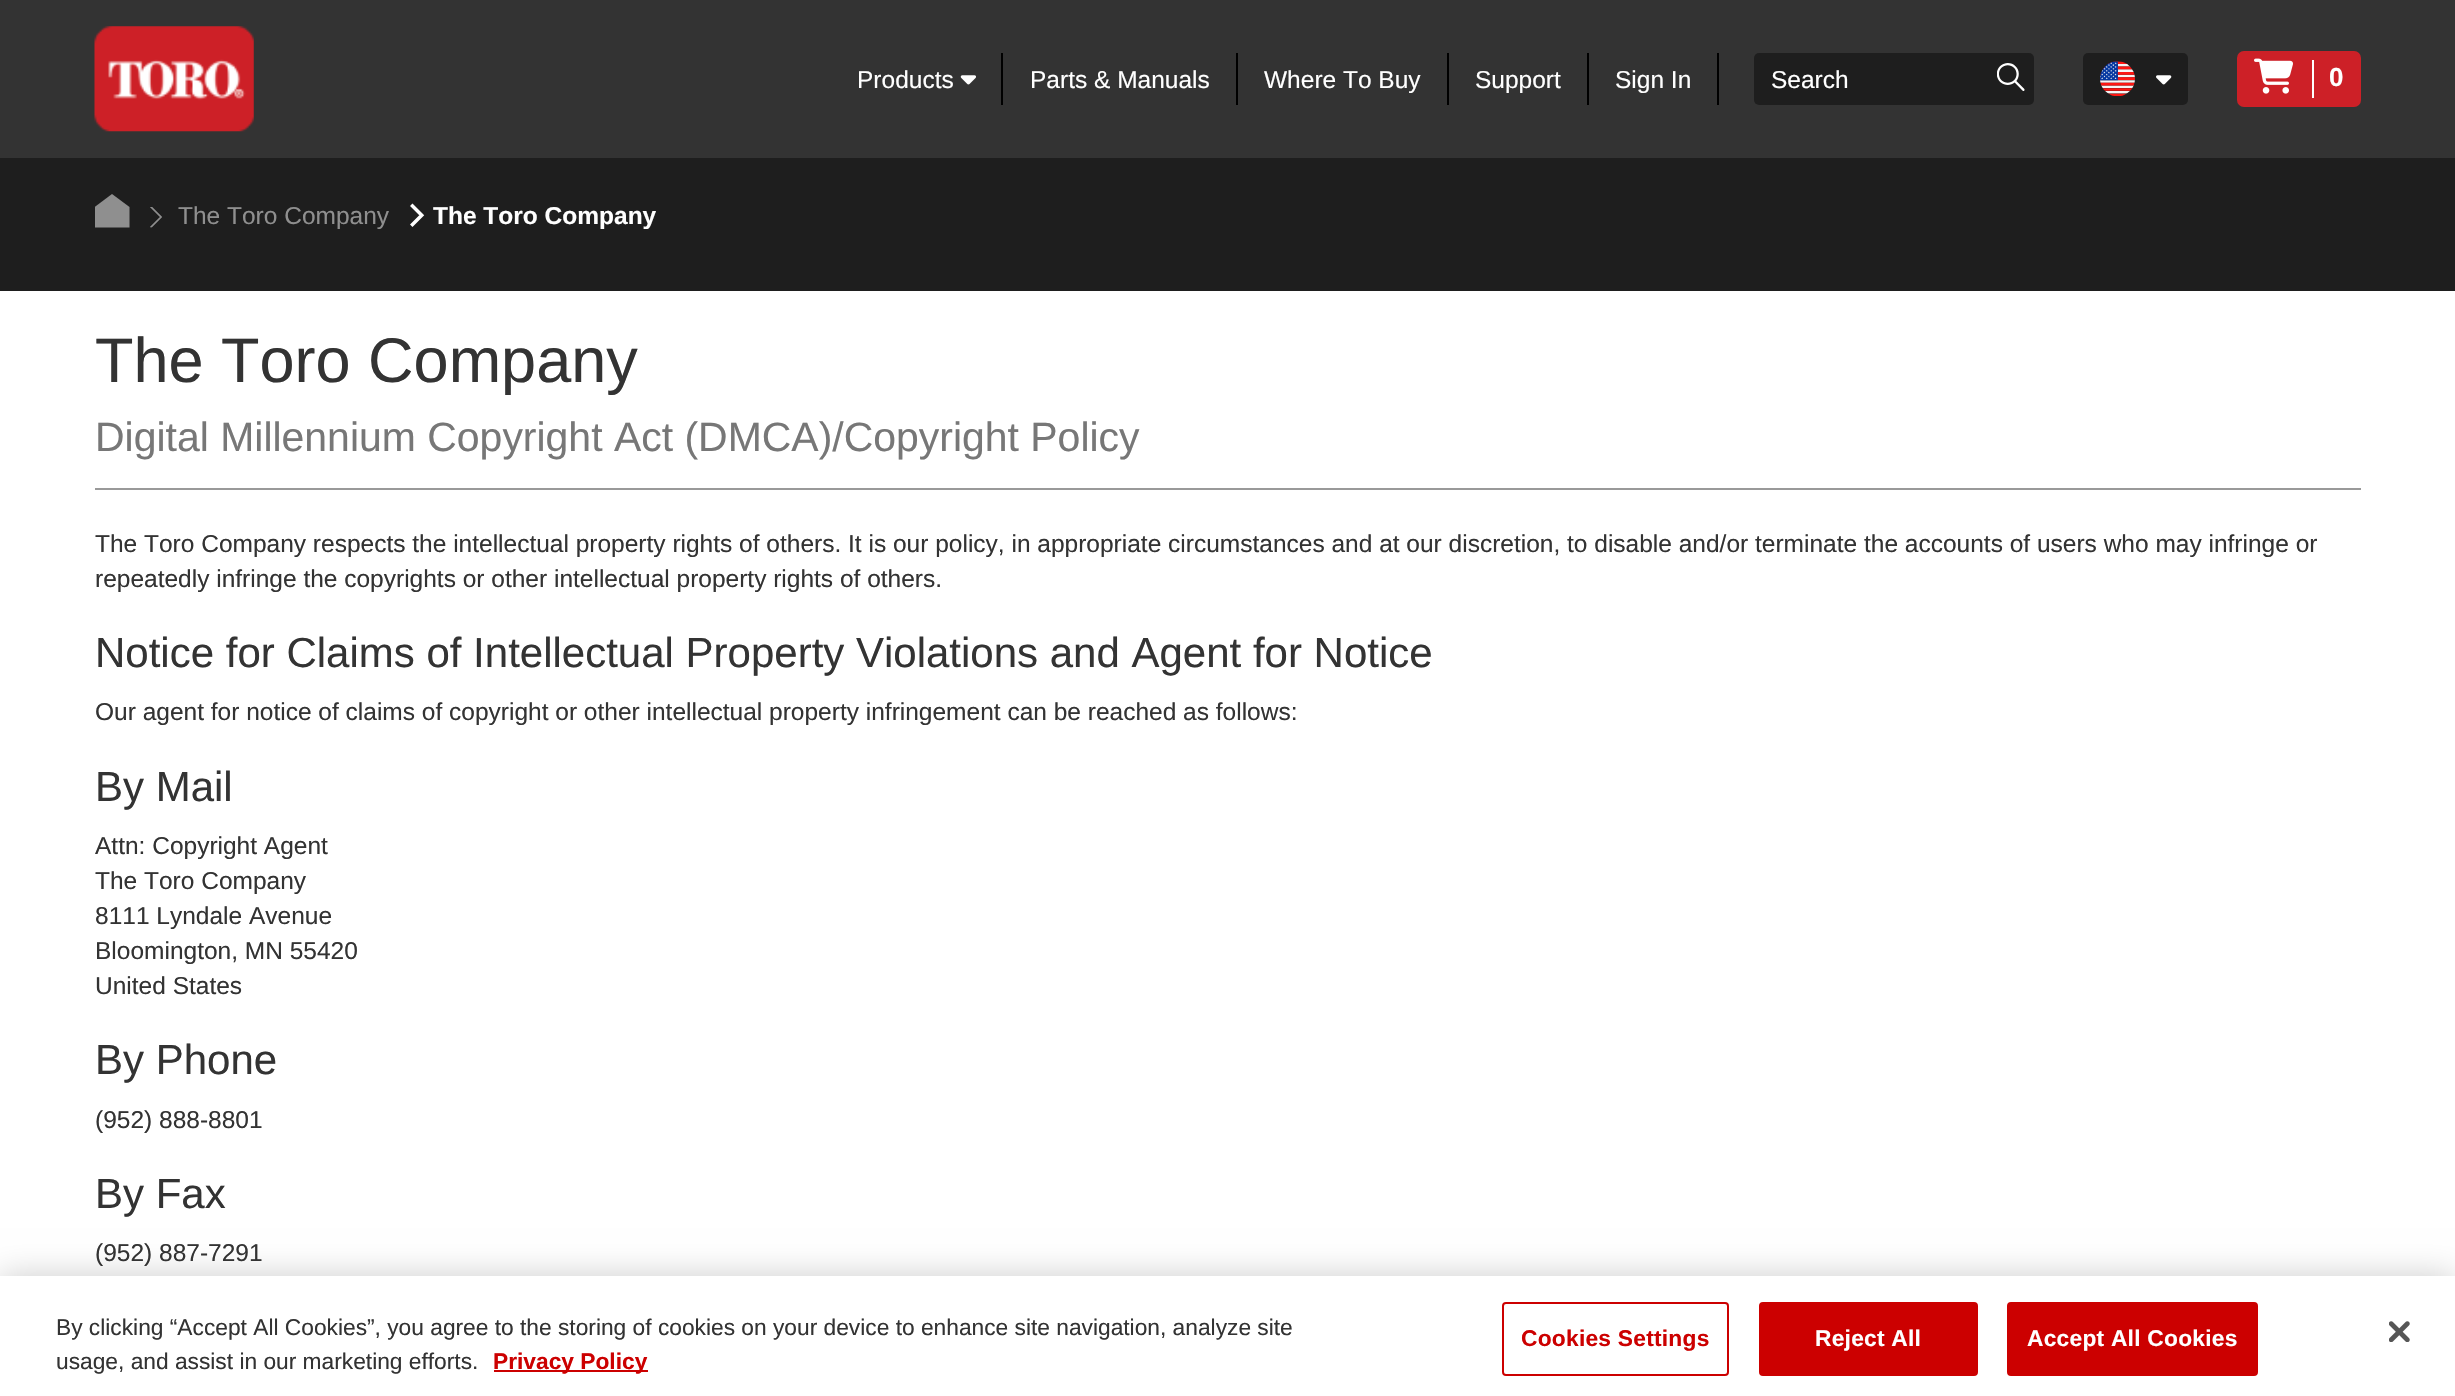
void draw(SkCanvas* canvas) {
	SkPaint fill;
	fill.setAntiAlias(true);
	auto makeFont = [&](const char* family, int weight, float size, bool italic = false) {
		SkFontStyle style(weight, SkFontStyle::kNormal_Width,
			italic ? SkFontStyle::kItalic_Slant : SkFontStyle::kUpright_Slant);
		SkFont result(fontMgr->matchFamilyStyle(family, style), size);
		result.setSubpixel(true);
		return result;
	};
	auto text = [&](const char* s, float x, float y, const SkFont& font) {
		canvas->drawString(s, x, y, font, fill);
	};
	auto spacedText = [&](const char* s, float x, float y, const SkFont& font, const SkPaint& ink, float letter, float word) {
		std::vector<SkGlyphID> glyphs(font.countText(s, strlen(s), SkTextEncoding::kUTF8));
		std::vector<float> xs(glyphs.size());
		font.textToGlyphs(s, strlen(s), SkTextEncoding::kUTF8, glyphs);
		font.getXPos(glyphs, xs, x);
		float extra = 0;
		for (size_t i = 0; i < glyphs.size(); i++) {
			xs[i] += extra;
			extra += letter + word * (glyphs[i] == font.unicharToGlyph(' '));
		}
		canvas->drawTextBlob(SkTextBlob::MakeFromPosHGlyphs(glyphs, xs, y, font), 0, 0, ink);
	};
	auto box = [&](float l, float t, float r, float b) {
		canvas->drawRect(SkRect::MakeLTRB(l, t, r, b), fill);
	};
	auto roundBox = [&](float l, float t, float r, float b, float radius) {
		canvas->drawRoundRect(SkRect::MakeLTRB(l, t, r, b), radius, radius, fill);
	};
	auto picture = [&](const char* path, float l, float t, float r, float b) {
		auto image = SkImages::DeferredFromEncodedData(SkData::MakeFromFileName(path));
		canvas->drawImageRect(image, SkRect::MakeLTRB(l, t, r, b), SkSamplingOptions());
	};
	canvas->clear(0xFFFFFFFF);
	fill.setColor(0xFF333333);
	box(0, 0, 2455, 158);
	picture("image0.png", 94, 26, 254, 132);
	fill.setColor(0xFF000000);
	box(1001, 53, 1003, 105);
	picture("image1.png", 960, 75, 976, 85);
	box(1236, 53, 1238, 105);
	box(1447, 53, 1449, 105);
	box(1587, 53, 1589, 105);
	box(1717, 53, 1719, 105);
	fill.setColor(0xFF1E1E1E);
	roundBox(1754, 53, 2034, 105, 5);
	picture("image2.png", 1997, 63, 2025, 91);
	roundBox(2083, 53, 2188, 105, 5);
	picture("image3.png", 2100, 61, 2135, 96);
	picture("image4.png", 2156, 75, 2172, 85);
	fill.setColor(0xFFCD2027);
	roundBox(2237, 51, 2361, 107, 7);
	fill.setColor(0xFFFFFFFF);
	box(2312, 60, 2314, 98);
	picture("image5.png", 2254, 58, 2293, 94);
	fill.setColor(0xFF1E1E1E);
	box(0, 158, 2455, 291);
	canvas->save();
	canvas->clipRect(SkRect::MakeLTRB(95, 194, 130, 228));
	fill.setColor(0xFF8F8F8F);
	canvas->drawPath(SkPathBuilder().moveTo(94.5f, 227.5f).lineTo(94.5f, 207).lineTo(112, 194).lineTo(129.5f, 207).lineTo(129.5f, 227.5f).close().detach(), fill);
	canvas->restore();
	picture("image6.png", 150, 207, 162, 228);
	picture("image7.png", 410, 203, 425, 227);
	fill.setColor(0xFF999999);
	box(95, 488, 2361, 490);
	fill.setColor(0x33000000);
	fill.setMaskFilter(SkMaskFilter::MakeBlur(kNormal_SkBlurStyle, 16));
	canvas->drawRect(SkRect::MakeLTRB(0, 1276, 2455, 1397), fill);
	fill.setMaskFilter(nullptr);
	fill.setColor(0xFFFFFFFF);
	box(0, 1276, 2455, 1396);
	fill.setColor(0xFFCC0000);
	box(494, 1370, 648, 1372);
	fill.setStyle(SkPaint::kStroke_Style);
	fill.setStrokeWidth(2);
	canvas->drawRoundRect(SkRect::MakeLTRB(1503, 1303, 1728, 1375), 3, 3, fill);
	fill.setStyle(SkPaint::kFill_Style);
	canvas->drawRoundRect(SkRect::MakeLTRB(1760, 1303, 1977, 1375), 3, 3, fill);
	fill.setStyle(SkPaint::kStroke_Style);
	canvas->drawRoundRect(SkRect::MakeLTRB(1760, 1303, 1977, 1375), 3, 3, fill);
	fill.setStyle(SkPaint::kFill_Style);
	canvas->drawRoundRect(SkRect::MakeLTRB(2008, 1303, 2257, 1375), 3, 3, fill);
	fill.setStyle(SkPaint::kStroke_Style);
	canvas->drawRoundRect(SkRect::MakeLTRB(2008, 1303, 2257, 1375), 3, 3, fill);
	picture("image8.png", 2389, 1321, 2410, 1342);
	auto font1 = makeFont("Liberation Sans", 400, 24.5f);
	fill.setStyle(SkPaint::kFill_Style);
	fill.setColor(0xFFFFFFFF);
	text("Products", 857, 88, font1);
	text("Parts & Manuals", 1030, 88, font1);
	text("Where To Buy", 1264, 88, font1);
	text("Support", 1475, 88, font1);
	text("Sign In", 1615, 88, font1);
	text("Search", 1771, 88, font1);
	auto font2 = makeFont("Liberation Sans", 700, 26);
	text("0", 2329, 86, font2);
	fill.setColor(0xFF8F8F8F);
	text("The Toro Company", 178, 224, font1);
	auto font3 = makeFont("Liberation Sans", 700, 24.5f);
	fill.setColor(0xFFFFFFFF);
	text("The Toro Company", 433, 224, font3);
	auto font4 = makeFont("Liberation Sans", 400, 63);
	fill.setColor(0xFF333333);
	text("The Toro Company", 95, 382, font4);
	auto font5 = makeFont("Liberation Sans", 400, 40.95f);
	fill.setColor(0xFF777777);
	text("Digital Millennium Copyright Act (DMCA)/Copyright Policy", 95, 451, font5);
	fill.setColor(0xFF333333);
	text("The Toro Company respects the intellectual property rights of others. It is our policy, in appropriate circumstances and at our discretion, to disable and/or terminate the accounts of users who may infringe or", 95, 552, font1);
	text("repeatedly infringe the copyrights or other intellectual property rights of others.", 95, 587, font1);
	auto font6 = makeFont("Liberation Sans", 400, 42);
	text("Notice for Claims of Intellectual Property Violations and Agent for Notice", 95, 667, font6);
	text("Our agent for notice of claims of copyright or other intellectual property infringement can be reached as follows:", 95, 720, font1);
	text("By Mail", 95, 801, font6);
	text("Attn: Copyright Agent", 95, 854, font1);
	text("The Toro Company", 95, 889, font1);
	text("8111 Lyndale Avenue", 95, 924, font1);
	text("Bloomington, MN 55420", 95, 959, font1);
	text("United States", 95, 994, font1);
	text("By Phone", 95, 1074, font6);
	text("(952) 888-8801", 95, 1128, font1);
	text("By Fax", 95, 1208, font6);
	text("(952) 887-7291", 95, 1261, font1);
	auto font7 = makeFont("Liberation Sans", 400, 22.75f);
	text("By clicking “Accept All Cookies”, you agree to the storing of cookies on your device to enhance site navigation, analyze site", 56, 1335, font7);
	text("usage, and assist in our marketing efforts.", 56, 1369, font7);
	auto font8 = makeFont("Liberation Sans", 700, 22.75f);
	fill.setColor(0xFFCC0000);
	text("Privacy Policy", 493, 1369, font8);
	spacedText("Cookies Settings", 1521, 1346, font8, fill, 0.25f, 0);
	fill.setColor(0xFFFFFFFF);
	spacedText("Reject All", 1815, 1346, font8, fill, 0.25f, 0);
	spacedText("Accept All Cookies", 2027, 1346, font8, fill, 0.25f, 0);
}
